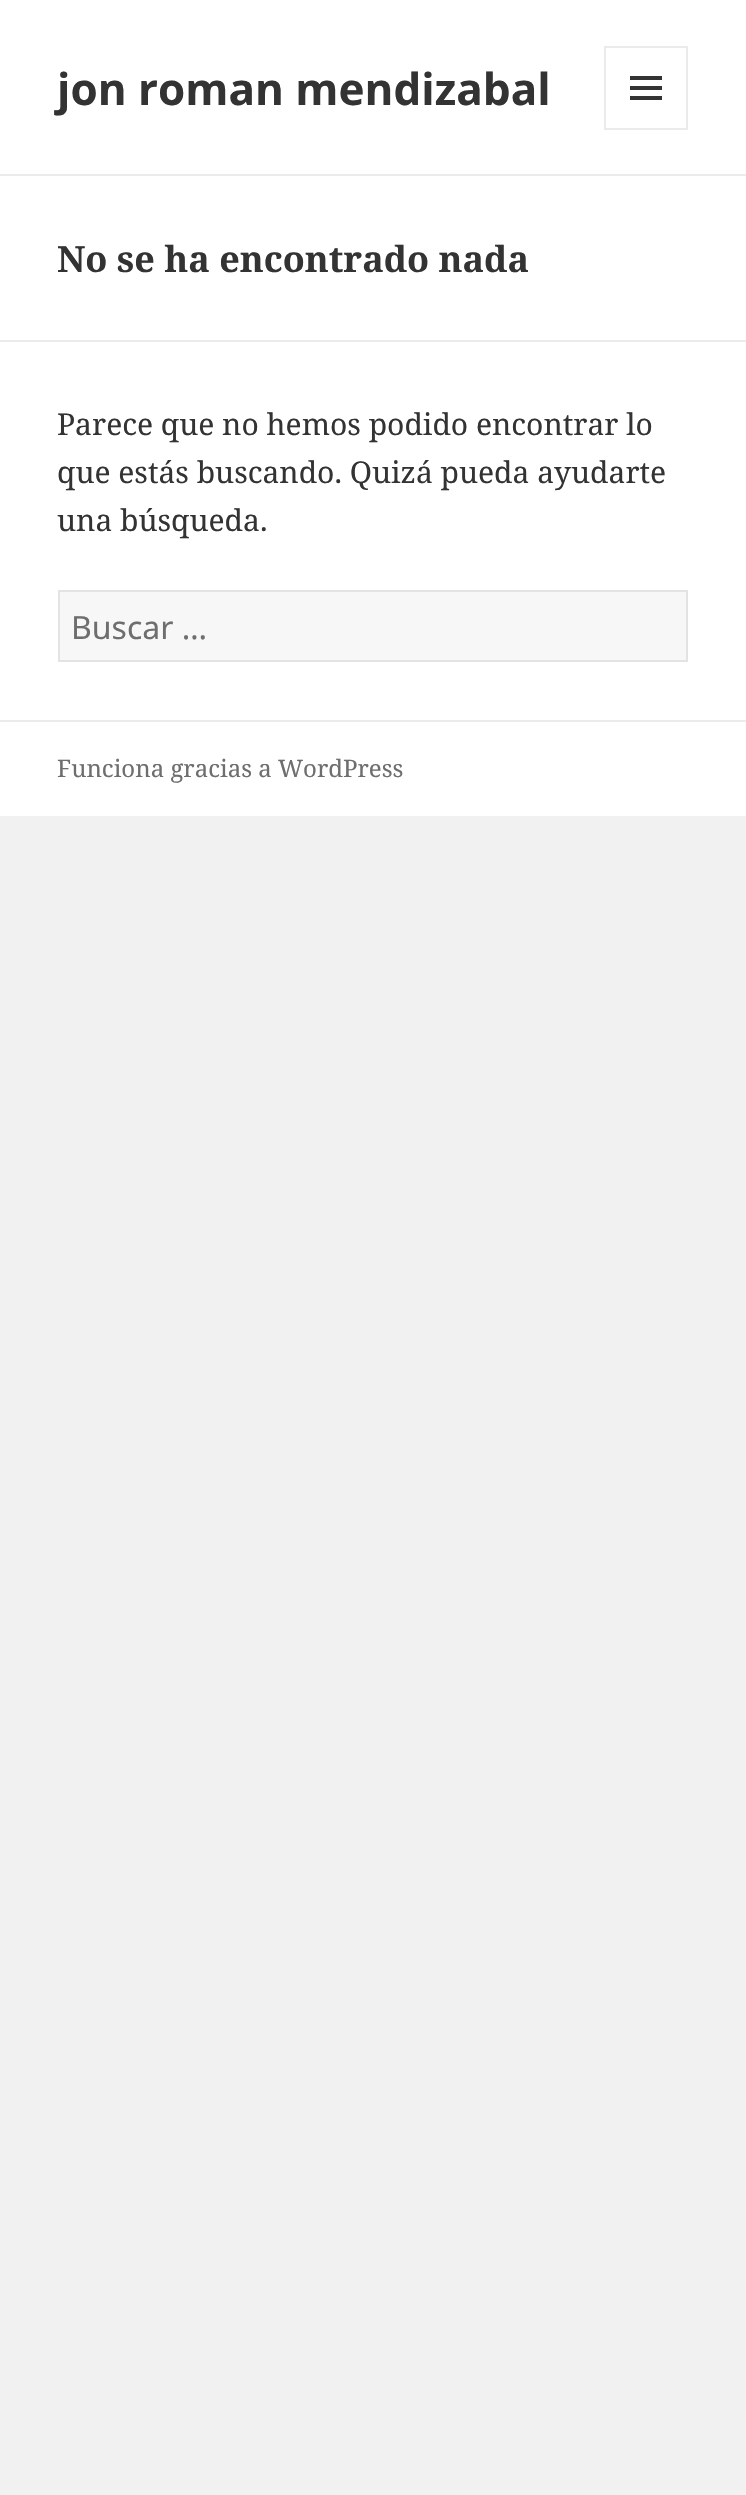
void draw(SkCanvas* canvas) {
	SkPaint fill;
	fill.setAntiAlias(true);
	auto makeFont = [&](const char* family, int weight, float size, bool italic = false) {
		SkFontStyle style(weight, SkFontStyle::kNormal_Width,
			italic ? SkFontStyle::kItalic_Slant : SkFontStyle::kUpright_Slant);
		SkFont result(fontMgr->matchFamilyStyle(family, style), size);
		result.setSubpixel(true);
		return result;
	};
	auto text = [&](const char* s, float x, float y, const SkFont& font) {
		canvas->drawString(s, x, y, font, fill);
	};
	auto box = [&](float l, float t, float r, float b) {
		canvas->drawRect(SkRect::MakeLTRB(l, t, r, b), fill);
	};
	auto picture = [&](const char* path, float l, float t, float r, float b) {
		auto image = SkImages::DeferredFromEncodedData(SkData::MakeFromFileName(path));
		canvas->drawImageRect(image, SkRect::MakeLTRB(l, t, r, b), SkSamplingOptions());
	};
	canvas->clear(0xFFF1F1F1);
	fill.setColor(0xFFFFFFFF);
	box(0, 0, 746, 174);
	fill.setColor(0xFFEBEBEB);
	box(0, 174, 746, 176);
	fill.setStyle(SkPaint::kStroke_Style);
	fill.setStrokeWidth(2);
	canvas->drawRect(SkRect::MakeLTRB(605, 47, 687, 129), fill);
	picture("image0.png", 630, 76, 662, 100);
	fill.setStyle(SkPaint::kFill_Style);
	fill.setColor(0xFFFFFFFF);
	box(0, 176, 746, 340);
	fill.setColor(0xFFEBEBEB);
	box(0, 340, 746, 342);
	fill.setColor(0xFFFFFFFF);
	box(0, 342, 746, 720);
	fill.setColor(0xFFF7F7F7);
	canvas->drawRect(SkRect::MakeLTRB(59, 591, 687, 661), fill);
	fill.setStyle(SkPaint::kStroke_Style);
	fill.setColor(0xFFE3E3E3);
	canvas->drawRect(SkRect::MakeLTRB(59, 591, 687, 661), fill);
	fill.setStyle(SkPaint::kFill_Style);
	fill.setColor(0xFFFFFFFF);
	box(0, 722, 746, 816);
	fill.setColor(0xFFEBEBEB);
	box(0, 720, 746, 722);
	auto font1 = makeFont("Noto Sans", 700, 44);
	fill.setColor(0xFF333333);
	text("jon roman mendizabal", 57, 105, font1);
	auto font2 = makeFont("Noto Serif", 700, 36);
	text("No se ha encontrado nada", 57, 272, font2);
	auto font3 = makeFont("Noto Serif", 400, 30);
	text("Parece que no hemos podido encontrar lo", 57, 435, font3);
	text("que estás buscando. Quizá pueda ayudarte", 57, 483, font3);
	text("una búsqueda.", 57, 531, font3);
	auto font4 = makeFont("Noto Sans", 400, 32);
	fill.setColor(0xFF6E6E6E);
	text("Buscar …", 71, 639, font4);
	auto font5 = makeFont("Noto Serif", 400, 24);
	text("Funciona gracias a WordPress", 57, 777, font5);
}
